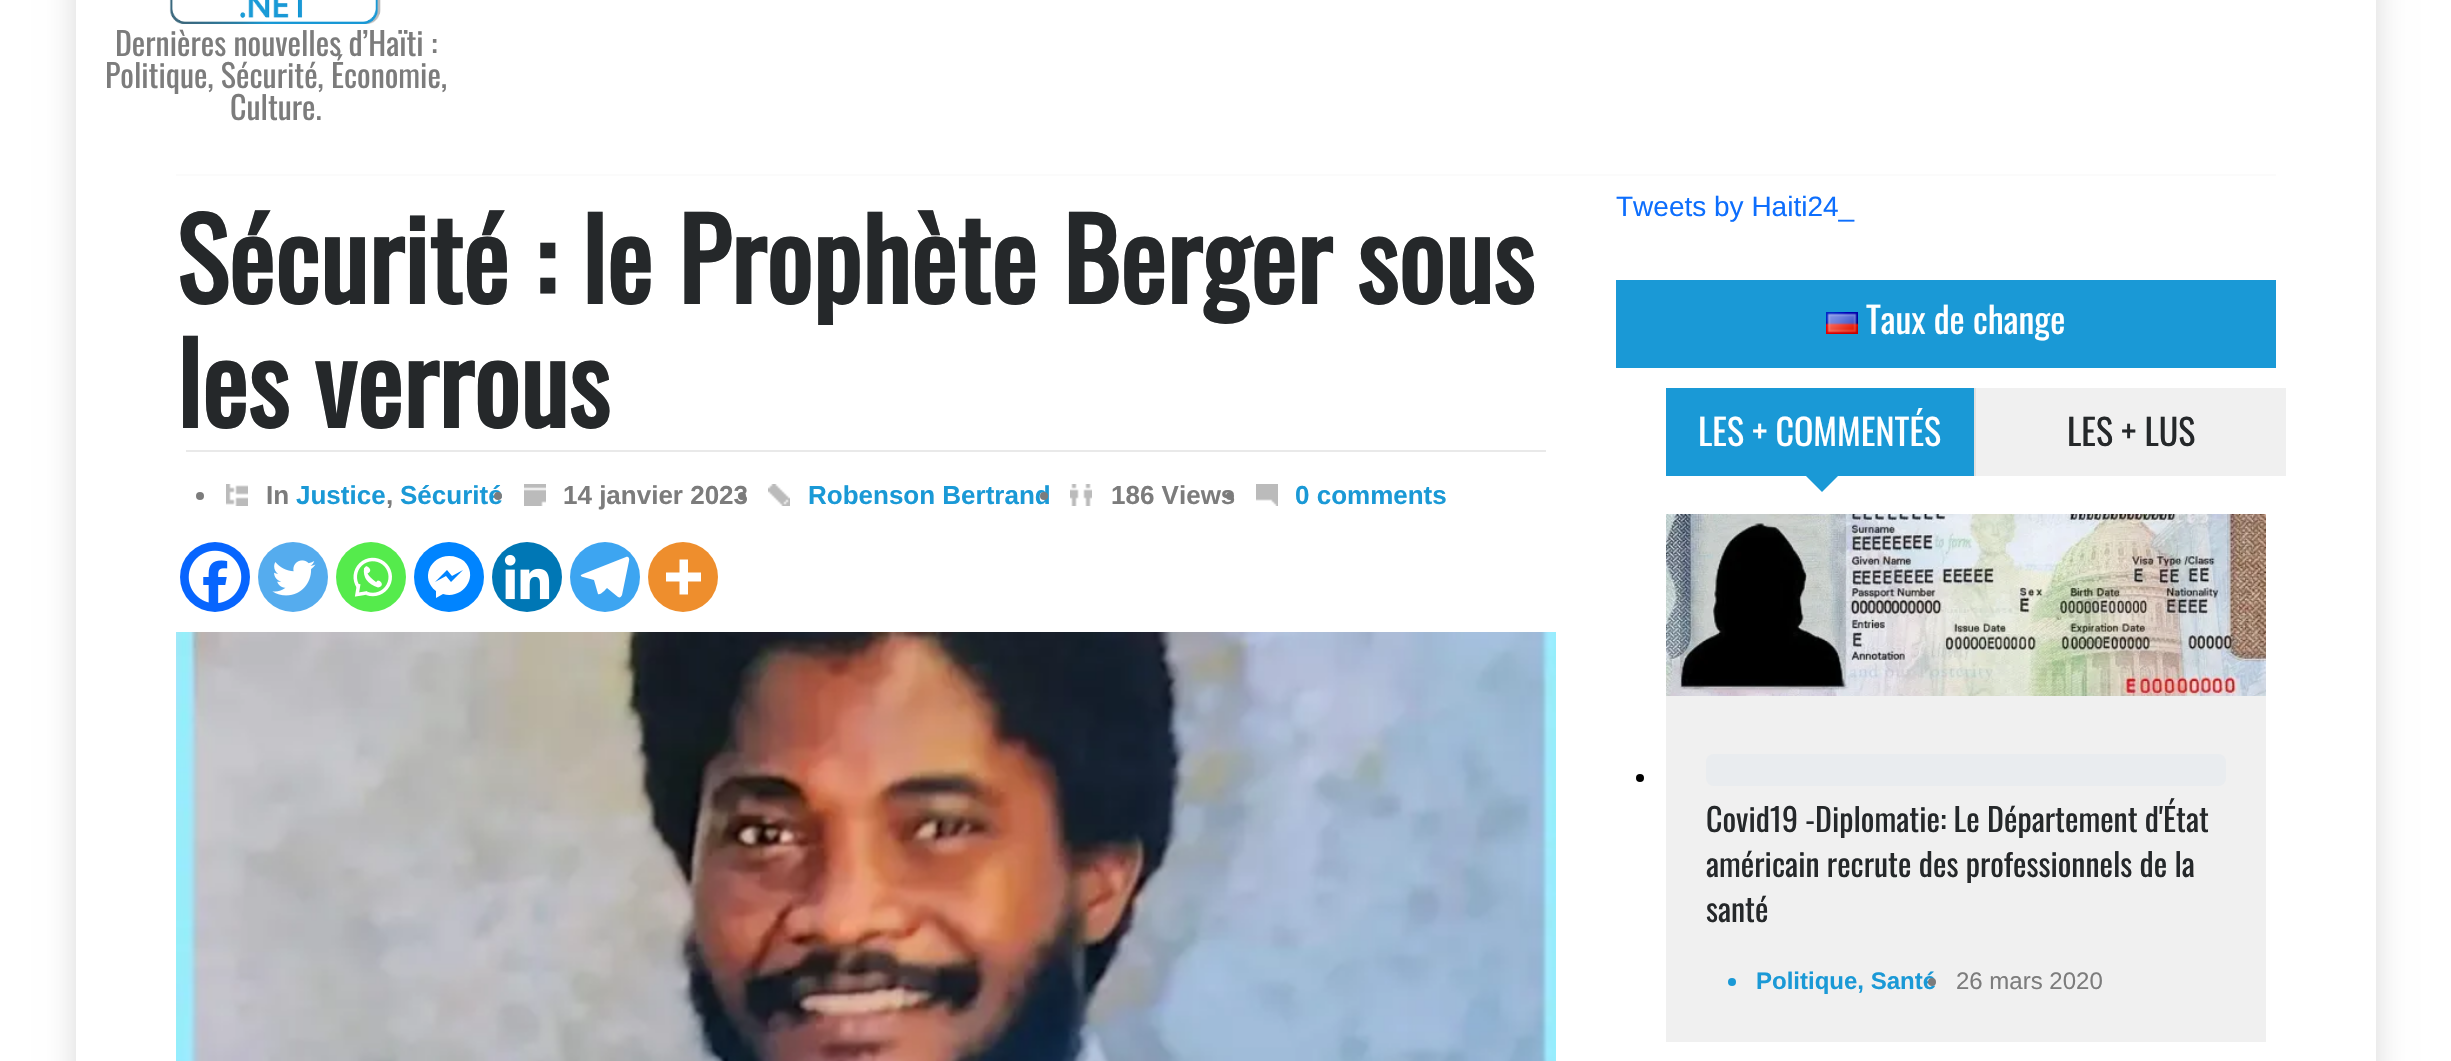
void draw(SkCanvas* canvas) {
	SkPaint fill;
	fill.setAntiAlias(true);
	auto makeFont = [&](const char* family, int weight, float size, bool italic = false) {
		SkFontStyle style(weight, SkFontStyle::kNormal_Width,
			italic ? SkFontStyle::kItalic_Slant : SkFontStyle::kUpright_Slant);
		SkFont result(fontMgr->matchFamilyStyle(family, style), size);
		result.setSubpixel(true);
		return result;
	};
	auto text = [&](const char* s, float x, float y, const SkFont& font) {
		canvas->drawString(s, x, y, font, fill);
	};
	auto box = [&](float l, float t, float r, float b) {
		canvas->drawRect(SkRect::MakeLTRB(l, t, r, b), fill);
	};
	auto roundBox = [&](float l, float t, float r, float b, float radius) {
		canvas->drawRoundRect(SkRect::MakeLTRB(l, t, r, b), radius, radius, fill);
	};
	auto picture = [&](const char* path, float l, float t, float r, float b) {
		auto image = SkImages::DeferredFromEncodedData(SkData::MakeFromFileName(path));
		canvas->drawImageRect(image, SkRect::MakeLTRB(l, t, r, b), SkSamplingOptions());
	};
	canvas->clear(0xFFFFFFFF);
	canvas->save();
	canvas->clipPath(SkPathBuilder(SkPathFillType::kEvenOdd).moveTo(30, 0).lineTo(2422, 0).lineTo(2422, 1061).lineTo(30, 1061).close().moveTo(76, -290).lineTo(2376, -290).lineTo(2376, 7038).lineTo(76, 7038).close().detach(), true);
	fill.setColor(0x26000000);
	fill.setMaskFilter(SkMaskFilter::MakeBlur(kNormal_SkBlurStyle, 15));
	canvas->drawRect(SkRect::MakeLTRB(76, -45, 2376, 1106), fill);
	fill.setMaskFilter(nullptr);
	canvas->restore();
	picture("image0.png", 169, 0, 381, 24);
	fill.setColor(0xFFFBFBFB);
	box(176, 174, 2276, 176);
	fill.setColor(0xFFE9E9E9);
	box(186, 450, 1546, 452);
	picture("image1.png", 226, 484, 248, 506);
	fill.setColor(0xFF7C7C7C);
	canvas->drawCircle(200, 496, 4, fill);
	picture("image2.png", 524, 484, 546, 506);
	picture("image3.png", 768, 484, 790, 506);
	canvas->drawCircle(742, 496, 4, fill);
	picture("image4.png", 1070, 484, 1092, 506);
	picture("image5.png", 1256, 484, 1278, 506);
	canvas->drawCircle(1230, 496, 4, fill);
	fill.setColor(0xFF0765FE);
	canvas->drawCircle(215, 577, 35, fill);
	picture("image6.png", 188, 550, 242, 603);
	fill.setColor(0xFF55ACEE);
	canvas->drawCircle(293, 577, 35, fill);
	picture("image7.png", 272, 560, 316, 596);
	fill.setColor(0xFF55EB4C);
	canvas->drawCircle(371, 577, 35, fill);
	picture("image8.png", 353, 557, 392, 597);
	fill.setColor(0xFF0084FF);
	canvas->drawCircle(449, 577, 35, fill);
	fill.setColor(0xFFFFFFFF);
	canvas->drawPath(SkPathBuilder().moveTo(449, 556).cubicTo(430, 556, 420, 579, 436, 591).lineTo(436, 598).lineTo(443, 594).cubicTo(462, 600, 480, 577, 464, 561).cubicTo(460, 558, 455, 556, 449, 556).close().moveTo(451, 582).lineTo(446, 576).lineTo(435, 582).lineTo(447, 570).lineTo(452, 576).lineTo(463, 570).close().detach(), fill);
	fill.setColor(0xFF0077B5);
	canvas->drawCircle(527, 577, 35, fill);
	picture("image9.png", 504, 554, 550, 600);
	fill.setColor(0xFF3DA5F1);
	canvas->drawCircle(605, 577, 35, fill);
	fill.setColor(0xFFFFFFFF);
	canvas->drawPath(SkPathBuilder().moveTo(626, 557).lineTo(583, 574).cubicTo(580, 575, 580, 576, 583, 577).lineTo(594, 580).lineTo(598, 594).cubicTo(600, 596, 606, 589, 607, 588).lineTo(618, 597).cubicTo(620, 598, 621, 597, 622, 595).lineTo(629, 561).cubicTo(630, 558, 628, 556, 626, 557).close().detach(), fill);
	fill.setColor(0xFFEE8E2D);
	canvas->drawCircle(683, 577, 35, fill);
	fill.setColor(0xFFFFFFFF);
	canvas->drawPath(SkPathBuilder(SkPathFillType::kEvenOdd).moveTo(688, 572.5f).lineTo(688, 559.5f).lineTo(679.5f, 559.5f).lineTo(679.5f, 572.5f).lineTo(666, 572.5f).lineTo(666, 581.5f).lineTo(679.5f, 581.5f).lineTo(679.5f, 594.5f).lineTo(688, 594.5f).lineTo(688, 581.5f).lineTo(701, 581.5f).lineTo(701, 572.5f).close().detach(), fill);
	picture("image10.png", 176, 632, 1556, 1061);
	fill.setColor(0xFF1A99D6);
	box(1616, 280, 2276, 368);
	picture("image11.png", 1826, 312, 1858, 334);
	box(1666, 388, 1974, 476);
	fill.setColor(0xFFE0E0E0);
	box(1974, 388, 1976, 476);
	fill.setColor(0xFF1A99D6);
	canvas->drawPath(SkPathBuilder().moveTo(1804, 474).lineTo(1840, 474).lineTo(1822, 492).close().detach(), fill);
	fill.setColor(0xFFF0F0F0);
	box(1976, 388, 2286, 476);
	picture("image12.png", 1666, 514, 2266, 696);
	fill.setColor(0xFF000000);
	canvas->drawCircle(1640, 778, 4, fill);
	fill.setColor(0xFFF0F0F0);
	box(1666, 696, 2266, 1042);
	fill.setColor(0xFFE9ECEF);
	roundBox(1706, 754, 2226, 786, 8);
	fill.setColor(0xFF1A99D6);
	canvas->drawCircle(1732, 982, 4, fill);
	auto font1 = makeFont("Oswald", 400, 32);
	fill.setColor(0xFF7C7C7C);
	text("Dernières nouvelles d’Haïti :", 115, 56, font1);
	text("Politique, Sécurité, Économie,", 105, 88, font1);
	text("Culture.", 230, 120, font1);
	auto font2 = makeFont("Oswald", 700, 110);
	fill.setColor(0xFF25282A);
	text("Sécurité : le Prophète Berger sous", 176, 304, font2);
	text("les verrous", 176, 428, font2);
	auto font3 = makeFont("Liberation Sans", 700, 26);
	fill.setColor(0xFF7C7C7C);
	text("In", 266, 504, font3);
	fill.setColor(0xFF1A99D6);
	text("Justice", 296, 504, font3);
	text("Sécurité", 400, 504, font3);
	fill.setColor(0xFF7C7C7C);
	text(",", 386, 504, font3);
	canvas->drawCircle(498, 496, 4, fill);
	text("14 janvier 2023", 563, 504, font3);
	fill.setColor(0xFF1A99D6);
	text("Robenson Bertrand", 808, 504, font3);
	fill.setColor(0xFF7C7C7C);
	canvas->drawCircle(1044, 496, 4, fill);
	text("186 Views", 1111, 504, font3);
	fill.setColor(0xFF1A99D6);
	text("0 comments", 1295, 504, font3);
	auto font4 = makeFont("Liberation Sans", 400, 28);
	fill.setColor(0xFF0D6EFD);
	text("Tweets by Haiti24_", 1616, 216, font4);
	auto font5 = makeFont("Oswald", 400, 36);
	fill.setColor(0xFFFFFFFF);
	text("Taux de change", 1866, 334, font5);
	text("LES + COMMENTÉS", 1698, 446, font5);
	fill.setColor(0xFF25282A);
	text("LES + LUS", 2067, 446, font5);
	text("Covid19 -Diplomatie: Le Département d'État", 1706, 832, font1);
	text("américain recrute des professionnels de la", 1706, 877, font1);
	text("santé", 1706, 922, font1);
	auto font6 = makeFont("Liberation Sans", 700, 24);
	fill.setColor(0xFF1A99D6);
	text("Politique, Santé", 1756, 989, font6);
	fill.setColor(0xFF7C7C7C);
	canvas->drawCircle(1932, 982, 4, fill);
	auto font7 = makeFont("Liberation Sans", 400, 24);
	text("26 mars 2020", 1956, 989, font7);
}
